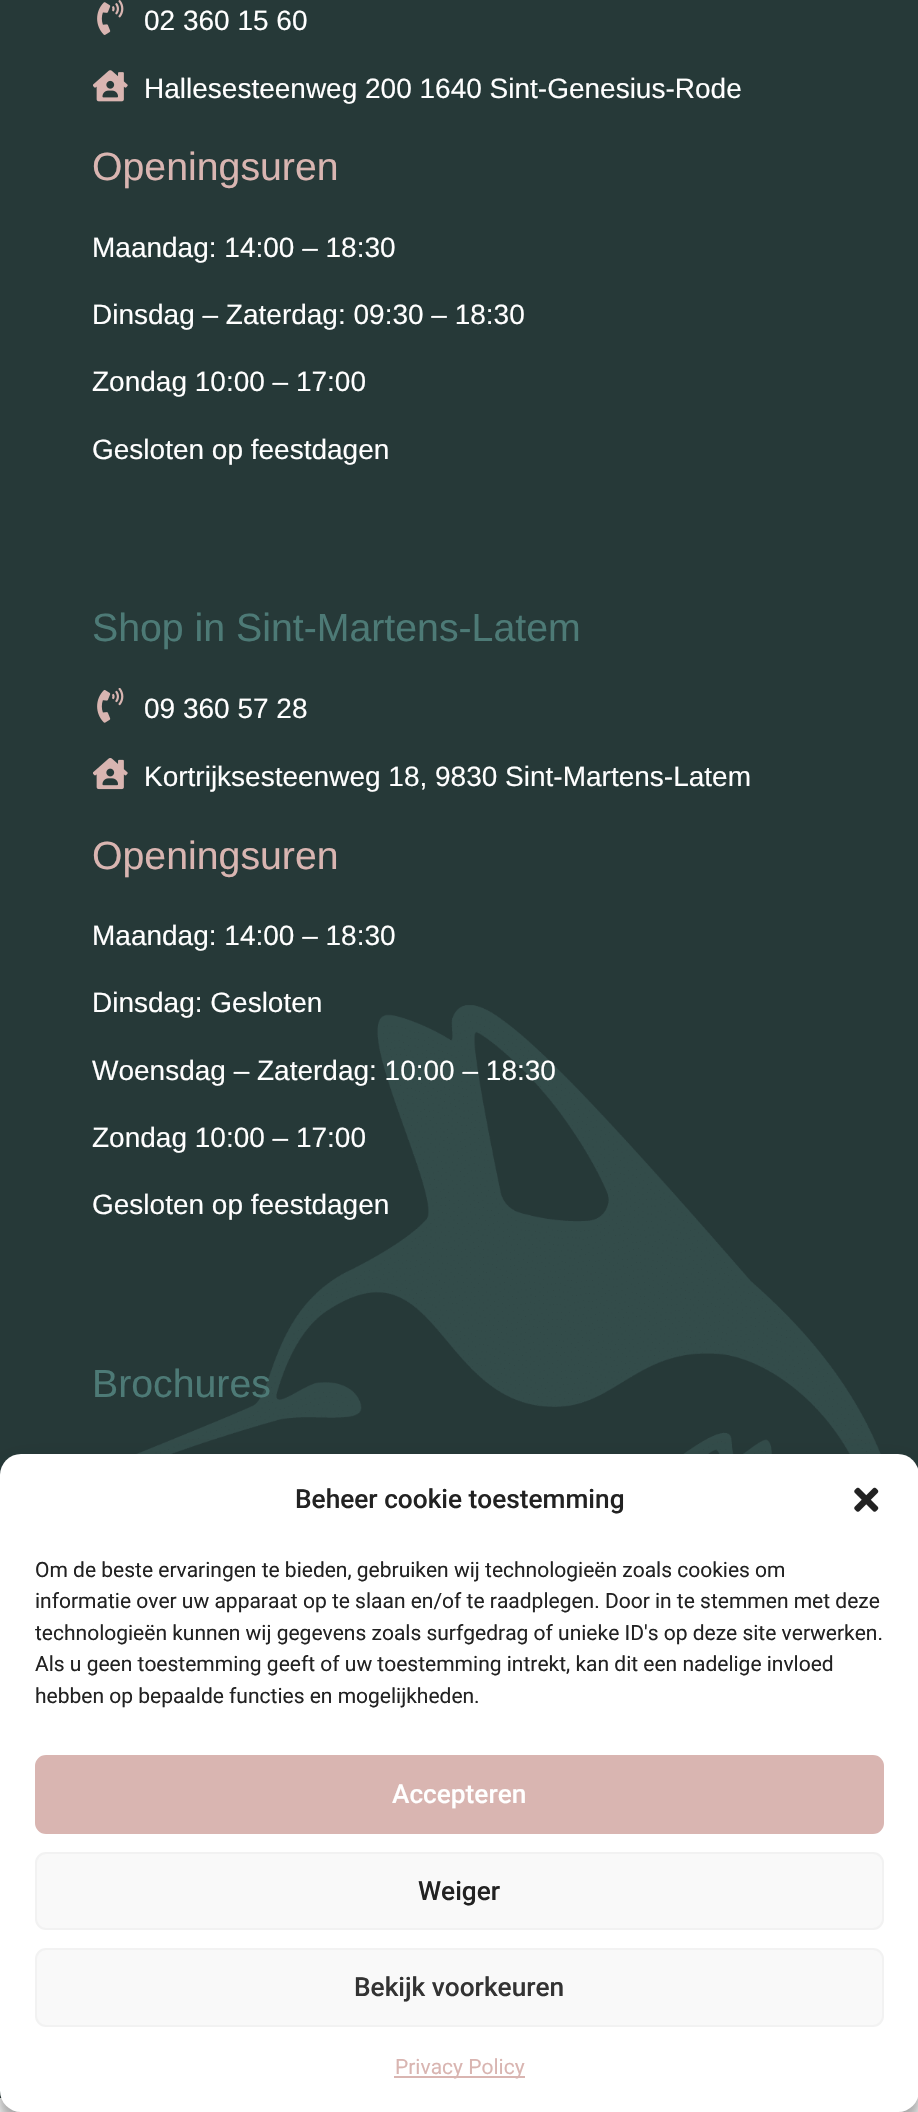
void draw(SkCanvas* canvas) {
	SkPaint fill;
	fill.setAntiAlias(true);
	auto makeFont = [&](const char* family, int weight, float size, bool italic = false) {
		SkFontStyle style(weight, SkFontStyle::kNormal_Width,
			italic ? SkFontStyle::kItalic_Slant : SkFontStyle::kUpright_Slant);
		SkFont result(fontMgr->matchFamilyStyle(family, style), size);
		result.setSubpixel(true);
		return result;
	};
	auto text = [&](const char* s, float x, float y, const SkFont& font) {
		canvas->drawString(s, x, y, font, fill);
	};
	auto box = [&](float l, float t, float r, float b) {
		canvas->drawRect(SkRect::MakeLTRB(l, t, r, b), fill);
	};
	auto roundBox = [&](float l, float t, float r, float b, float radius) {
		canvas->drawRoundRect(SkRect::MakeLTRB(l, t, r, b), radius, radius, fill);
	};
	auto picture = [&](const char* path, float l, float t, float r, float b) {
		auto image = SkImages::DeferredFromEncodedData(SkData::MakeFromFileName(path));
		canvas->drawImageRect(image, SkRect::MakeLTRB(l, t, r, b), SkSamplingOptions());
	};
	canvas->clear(0xFFFFFFFF);
	fill.setColor(0xFF263938);
	box(0, 0, 918, 2098);
	picture("image0.png", 136, 1005, 881, 1454);
	picture("image1.png", 97, 0, 124, 35);
	picture("image2.png", 93, 70, 128, 102);
	picture("image3.png", 97, 688, 124, 723);
	picture("image4.png", 93, 758, 128, 790);
	fill.setColor(0x3B000000);
	fill.setMaskFilter(SkMaskFilter::MakeBlur(kNormal_SkBlurStyle, 5));
	canvas->drawRoundRect(SkRect::MakeLTRB(0, 1465, 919, 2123), 21, 21, fill);
	fill.setMaskFilter(nullptr);
	fill.setColor(0x30000000);
	fill.setMaskFilter(SkMaskFilter::MakeBlur(kNormal_SkBlurStyle, 17.5f));
	canvas->drawRoundRect(SkRect::MakeLTRB(0, 1472, 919, 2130), 21, 21, fill);
	fill.setMaskFilter(nullptr);
	fill.setColor(0xFFFFFFFF);
	roundBox(0, 1454, 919, 2112, 21);
	picture("image5.png", 854, 1487, 879, 1512);
	fill.setColor(0xFFD9B5B1);
	canvas->drawRoundRect(SkRect::MakeLTRB(36, 1756, 883, 1833), 10, 10, fill);
	fill.setStyle(SkPaint::kStroke_Style);
	fill.setStrokeWidth(2);
	canvas->drawRoundRect(SkRect::MakeLTRB(36, 1756, 883, 1833), 10, 10, fill);
	fill.setStyle(SkPaint::kFill_Style);
	fill.setColor(0xFFF9F9F9);
	canvas->drawRoundRect(SkRect::MakeLTRB(36, 1853, 883, 1929), 10, 10, fill);
	fill.setStyle(SkPaint::kStroke_Style);
	fill.setColor(0xFFF2F2F2);
	canvas->drawRoundRect(SkRect::MakeLTRB(36, 1853, 883, 1929), 10, 10, fill);
	fill.setStyle(SkPaint::kFill_Style);
	fill.setColor(0xFFF9F9F9);
	canvas->drawRoundRect(SkRect::MakeLTRB(36, 1949, 883, 2026), 10, 10, fill);
	fill.setStyle(SkPaint::kStroke_Style);
	fill.setColor(0xFFF2F2F2);
	canvas->drawRoundRect(SkRect::MakeLTRB(36, 1949, 883, 2026), 10, 10, fill);
	fill.setStyle(SkPaint::kFill_Style);
	fill.setColor(0xFFD9B5B1);
	box(394, 2076, 525, 2078);
	auto font1 = makeFont("Liberation Sans", 400, 28);
	fill.setColor(0xFFFFFFFF);
	text("02 360 15 60", 144, 30, font1);
	text("Hallesesteenweg 200 1640 Sint-Genesius-Rode", 144, 98, font1);
	auto font2 = makeFont("Liberation Sans", 400, 39.25f);
	fill.setColor(0xFFD9B5B1);
	text("Openingsuren", 92, 180, font2);
	fill.setColor(0xFFFFFFFF);
	text("Maandag: 14:00 – 18:30", 92, 257, font1);
	text("Dinsdag – Zaterdag: 09:30 – 18:30", 92, 324, font1);
	text("Zondag 10:00 – 17:00", 92, 391, font1);
	text("Gesloten op feestdagen", 92, 459, font1);
	fill.setColor(0xFF4D7A76);
	text("Shop in Sint-Martens-Latem", 92, 641, font2);
	fill.setColor(0xFFFFFFFF);
	text("09 360 57 28", 144, 718, font1);
	text("Kortrijksesteenweg 18, 9830 Sint-Martens-Latem", 144, 786, font1);
	fill.setColor(0xFFD9B5B1);
	text("Openingsuren", 92, 869, font2);
	fill.setColor(0xFFFFFFFF);
	text("Maandag: 14:00 – 18:30", 92, 945, font1);
	text("Dinsdag: Gesloten", 92, 1012, font1);
	text("Woensdag – Zaterdag: 10:00 – 18:30", 92, 1080, font1);
	text("Zondag 10:00 – 17:00", 92, 1147, font1);
	text("Gesloten op feestdagen", 92, 1214, font1);
	fill.setColor(0xFF4D7A76);
	text("Brochures", 92, 1397, font2);
	auto font3 = makeFont("Roboto", 500, 26.25f);
	fill.setColor(0xFF222222);
	text("Beheer cookie toestemming", 295, 1508, font3);
	auto font4 = makeFont("Roboto", 400, 21);
	text("Om de beste ervaringen te bieden, gebruiken wij technologieën zoals cookies om", 35, 1577, font4);
	text("informatie over uw apparaat op te slaan en/of te raadplegen. Door in te stemmen met deze", 35, 1608, font4);
	text("technologieën kunnen wij gegevens zoals surfgedrag of unieke ID's op deze site verwerken.", 35, 1640, font4);
	text("Als u geen toestemming geeft of uw toestemming intrekt, kan dit een nadelige invloed", 35, 1671, font4);
	text("hebben op bepaalde functies en mogelijkheden.", 35, 1703, font4);
	fill.setColor(0xFFFFFFFF);
	text("Accepteren", 392, 1803, font3);
	fill.setColor(0xFF222222);
	text("Weiger", 418, 1900, font3);
	fill.setColor(0xFF333333);
	text("Bekijk voorkeuren", 354, 1996, font3);
	fill.setColor(0xFFD9B5B1);
	text("Privacy Policy", 395, 2074, font4);
}
